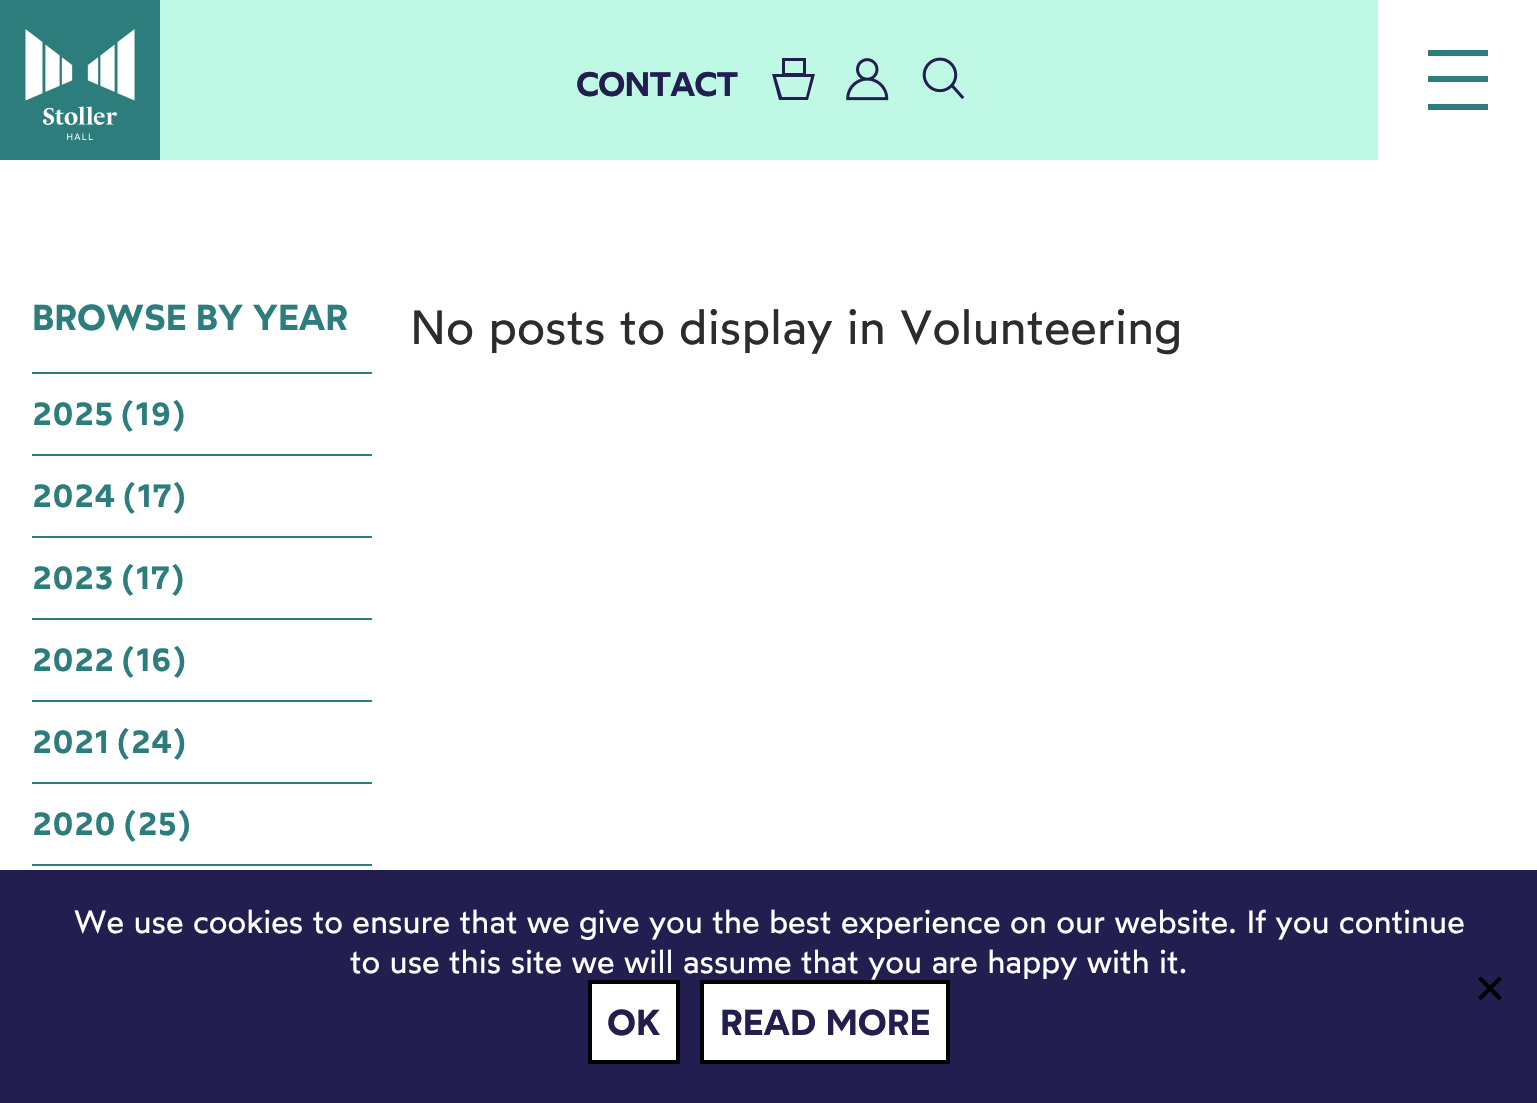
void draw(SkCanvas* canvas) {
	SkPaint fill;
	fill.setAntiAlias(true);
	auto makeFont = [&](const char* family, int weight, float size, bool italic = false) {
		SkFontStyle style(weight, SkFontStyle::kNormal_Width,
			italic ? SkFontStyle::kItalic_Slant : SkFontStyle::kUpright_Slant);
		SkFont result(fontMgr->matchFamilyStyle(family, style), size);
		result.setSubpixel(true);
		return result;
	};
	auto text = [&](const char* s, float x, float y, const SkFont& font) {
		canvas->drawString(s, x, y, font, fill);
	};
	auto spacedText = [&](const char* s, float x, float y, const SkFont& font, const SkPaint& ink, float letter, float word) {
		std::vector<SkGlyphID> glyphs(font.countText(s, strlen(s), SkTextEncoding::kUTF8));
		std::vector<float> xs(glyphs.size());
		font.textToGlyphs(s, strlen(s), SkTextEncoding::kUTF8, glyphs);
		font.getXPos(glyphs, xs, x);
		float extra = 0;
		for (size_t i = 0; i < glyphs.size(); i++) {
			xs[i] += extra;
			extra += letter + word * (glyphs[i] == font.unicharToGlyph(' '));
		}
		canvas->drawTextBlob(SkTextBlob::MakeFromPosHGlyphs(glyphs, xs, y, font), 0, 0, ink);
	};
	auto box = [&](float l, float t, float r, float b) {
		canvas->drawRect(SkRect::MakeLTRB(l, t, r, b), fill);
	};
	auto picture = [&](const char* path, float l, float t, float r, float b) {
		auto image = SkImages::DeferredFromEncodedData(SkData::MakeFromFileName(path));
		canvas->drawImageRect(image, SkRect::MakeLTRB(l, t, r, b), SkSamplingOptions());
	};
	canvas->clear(0xFFFFFFFF);
	picture("image0.png", 0, 0, 160, 160);
	fill.setColor(0xFFC0F8E6);
	box(160, 0, 1378, 160);
	fill.setColor(0xFF231E50);
	canvas->drawPath(SkPathBuilder().moveTo(806, 76).lineTo(782, 76).lineTo(782, 58).lineTo(806, 58).close().moveTo(785, 73).lineTo(803, 73).lineTo(803, 61).lineTo(785, 61).close().moveTo(808, 100).lineTo(779, 100).lineTo(772, 74).lineTo(815, 74).close().moveTo(782, 97).lineTo(806, 97).lineTo(811, 77).lineTo(776, 77).close().detach(), fill);
	picture("image1.png", 846, 58, 889, 101);
	picture("image2.png", 922, 57, 965, 100);
	fill.setColor(0xFF2D7D7D);
	box(1428, 50, 1488, 56);
	box(1428, 104, 1488, 110);
	box(1428, 76, 1488, 82);
	box(32, 372, 372, 374);
	box(32, 454, 372, 456);
	box(32, 536, 372, 538);
	box(32, 618, 372, 620);
	box(32, 700, 372, 702);
	box(32, 782, 372, 784);
	box(32, 864, 372, 866);
	fill.setColor(0xFF231E50);
	box(0, 870, 1537, 1103);
	fill.setColor(0xFF000000);
	canvas->drawPath(SkPathBuilder().moveTo(1499, 976.5f).lineTo(1502, 979).lineTo(1481, 1000.5f).lineTo(1478, 997.5f).close().detach(), fill);
	canvas->drawPath(SkPathBuilder().moveTo(1478, 979).lineTo(1481, 976.5f).lineTo(1502, 997.5f).lineTo(1499, 1000.5f).close().detach(), fill);
	fill.setColor(0xFFFFFFFF);
	canvas->drawRect(SkRect::MakeLTRB(590, 982, 678, 1062), fill);
	fill.setStyle(SkPaint::kStroke_Style);
	fill.setStrokeWidth(4);
	fill.setColor(0xFF000000);
	canvas->drawRect(SkRect::MakeLTRB(590, 982, 678, 1062), fill);
	fill.setStyle(SkPaint::kFill_Style);
	fill.setColor(0xFFFFFFFF);
	canvas->drawRect(SkRect::MakeLTRB(702, 982, 948, 1062), fill);
	fill.setStyle(SkPaint::kStroke_Style);
	fill.setColor(0xFF000000);
	canvas->drawRect(SkRect::MakeLTRB(702, 982, 948, 1062), fill);
	auto font1 = makeFont("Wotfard", 600, 34);
	fill.setStyle(SkPaint::kFill_Style);
	fill.setColor(0xFF231E50);
	spacedText("CONTACT", 576, 96, font1, fill, -1, 0);
	auto font2 = makeFont("Wotfard", 600, 36);
	fill.setColor(0xFF2D7D7D);
	text("BROWSE BY YEAR", 32, 330, font2);
	auto font3 = makeFont("Wotfard", 600, 32);
	text("2025 (19)", 32, 425, font3);
	text("2024 (17)", 32, 507, font3);
	text("2023 (17)", 32, 589, font3);
	text("2022 (16)", 32, 671, font3);
	text("2021 (24)", 32, 753, font3);
	text("2020 (25)", 32, 835, font3);
	auto font4 = makeFont("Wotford", 400, 48);
	fill.setColor(0xFF2C2C2C);
	text("No posts to display in Volunteering", 410, 344, font4);
	auto font5 = makeFont("Wotford", 400, 32);
	fill.setColor(0xFFFFFFFF);
	text("We use cookies to ensure that we give you the best experience on our website. If you continue", 74, 933, font5);
	text("to use this site we will assume that you are happy with it.", 350, 973, font5);
	fill.setColor(0xFF231E50);
	text("OK", 607, 1035, font2);
	text("READ MORE", 720, 1035, font2);
}
